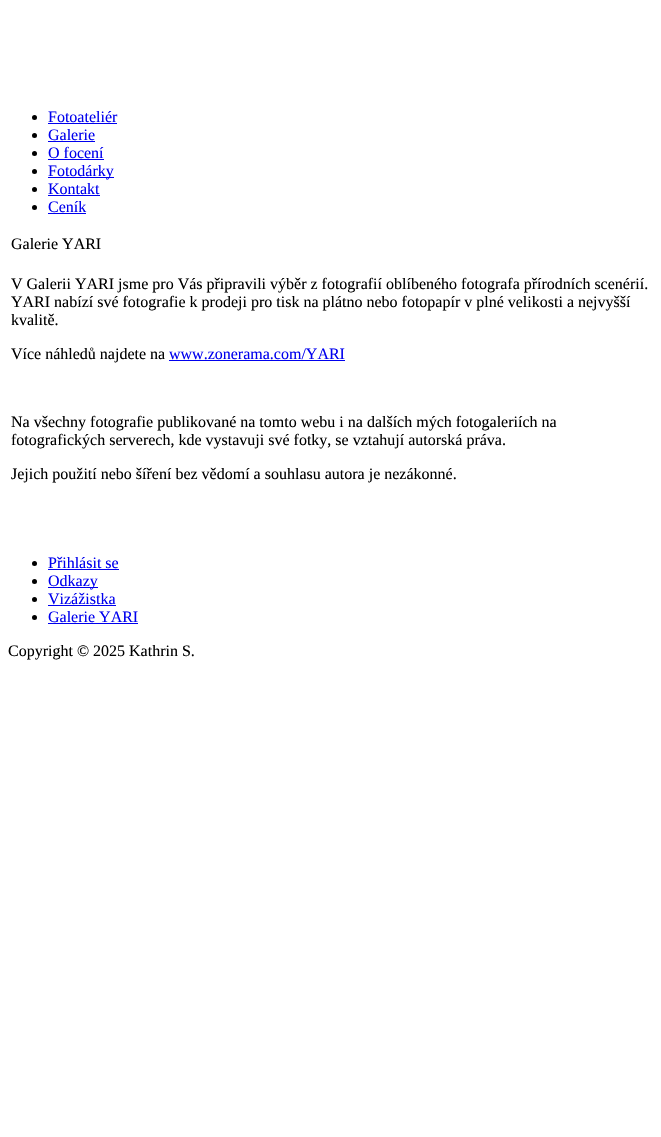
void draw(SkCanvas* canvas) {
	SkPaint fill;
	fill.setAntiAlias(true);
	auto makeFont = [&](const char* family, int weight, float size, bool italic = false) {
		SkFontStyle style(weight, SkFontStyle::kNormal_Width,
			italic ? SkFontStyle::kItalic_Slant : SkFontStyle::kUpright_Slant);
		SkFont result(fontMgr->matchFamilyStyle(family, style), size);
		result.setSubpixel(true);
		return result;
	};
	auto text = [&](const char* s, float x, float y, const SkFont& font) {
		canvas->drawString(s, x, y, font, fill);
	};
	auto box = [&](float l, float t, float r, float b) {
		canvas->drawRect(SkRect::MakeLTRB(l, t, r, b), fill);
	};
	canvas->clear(0xFFFFFFFF);
	fill.setColor(0xFF000000);
	canvas->drawCircle(34.5f, 117.5f, 2.5f, fill);
	fill.setColor(0xFF0000EE);
	box(48, 123, 117, 124);
	fill.setColor(0xFF000000);
	canvas->drawCircle(34.5f, 135.5f, 2.5f, fill);
	fill.setColor(0xFF0000EE);
	box(48, 141, 95, 142);
	fill.setColor(0xFF000000);
	canvas->drawCircle(34.5f, 153.5f, 2.5f, fill);
	fill.setColor(0xFF0000EE);
	box(48, 159, 104, 160);
	fill.setColor(0xFF000000);
	canvas->drawCircle(34.5f, 171.5f, 2.5f, fill);
	fill.setColor(0xFF0000EE);
	box(48, 177, 114, 178);
	fill.setColor(0xFF000000);
	canvas->drawCircle(34.5f, 189.5f, 2.5f, fill);
	fill.setColor(0xFF0000EE);
	box(48, 195, 100, 196);
	fill.setColor(0xFF000000);
	canvas->drawCircle(34.5f, 207.5f, 2.5f, fill);
	fill.setColor(0xFF0000EE);
	box(48, 213, 86, 214);
	box(169, 360, 345, 361);
	fill.setColor(0xFF000000);
	canvas->drawCircle(34.5f, 563.5f, 2.5f, fill);
	fill.setColor(0xFF0000EE);
	box(48, 569, 119, 570);
	fill.setColor(0xFF000000);
	canvas->drawCircle(34.5f, 581.5f, 2.5f, fill);
	fill.setColor(0xFF0000EE);
	box(48, 587, 98, 588);
	fill.setColor(0xFF000000);
	canvas->drawCircle(34.5f, 599.5f, 2.5f, fill);
	fill.setColor(0xFF0000EE);
	box(48, 605, 116, 606);
	fill.setColor(0xFF000000);
	canvas->drawCircle(34.5f, 617.5f, 2.5f, fill);
	fill.setColor(0xFF0000EE);
	box(48, 623, 138, 624);
	auto font1 = makeFont("Liberation Serif", 400, 16);
	text("Fotoateliér", 48, 122, font1);
	text("Galerie", 48, 140, font1);
	text("O focení", 48, 158, font1);
	text("Fotodárky", 48, 176, font1);
	text("Kontakt", 48, 194, font1);
	text("Ceník", 48, 212, font1);
	fill.setColor(0xFF000000);
	text("Galerie YARI", 11, 249, font1);
	text("V Galerii YARI jsme pro Vás připravili výběr z fotografií oblíbeného fotografa přírodních scenérií.", 11, 289, font1);
	text("YARI nabízí své fotografie k prodeji pro tisk na plátno nebo fotopapír v plné velikosti a nejvyšší", 11, 307, font1);
	text("kvalitě.", 11, 325, font1);
	text("Více náhledů najdete na", 11, 359, font1);
	fill.setColor(0xFF0000EE);
	text("www.zonerama.com/YARI", 169, 359, font1);
	fill.setColor(0xFF000000);
	text("Na všechny fotografie publikované na tomto webu i na dalších mých fotogaleriích na", 11, 427, font1);
	text("fotografických serverech, kde vystavuji své fotky, se vztahují autorská práva.", 11, 445, font1);
	text("Jejich použití nebo šíření bez vědomí a souhlasu autora je nezákonné.", 11, 479, font1);
	fill.setColor(0xFF0000EE);
	text("Přihlásit se", 48, 568, font1);
	text("Odkazy", 48, 586, font1);
	text("Vizážistka", 48, 604, font1);
	text("Galerie YARI", 48, 622, font1);
	fill.setColor(0xFF000000);
	text("Copyright © 2025 Kathrin S.", 8, 656, font1);
}
